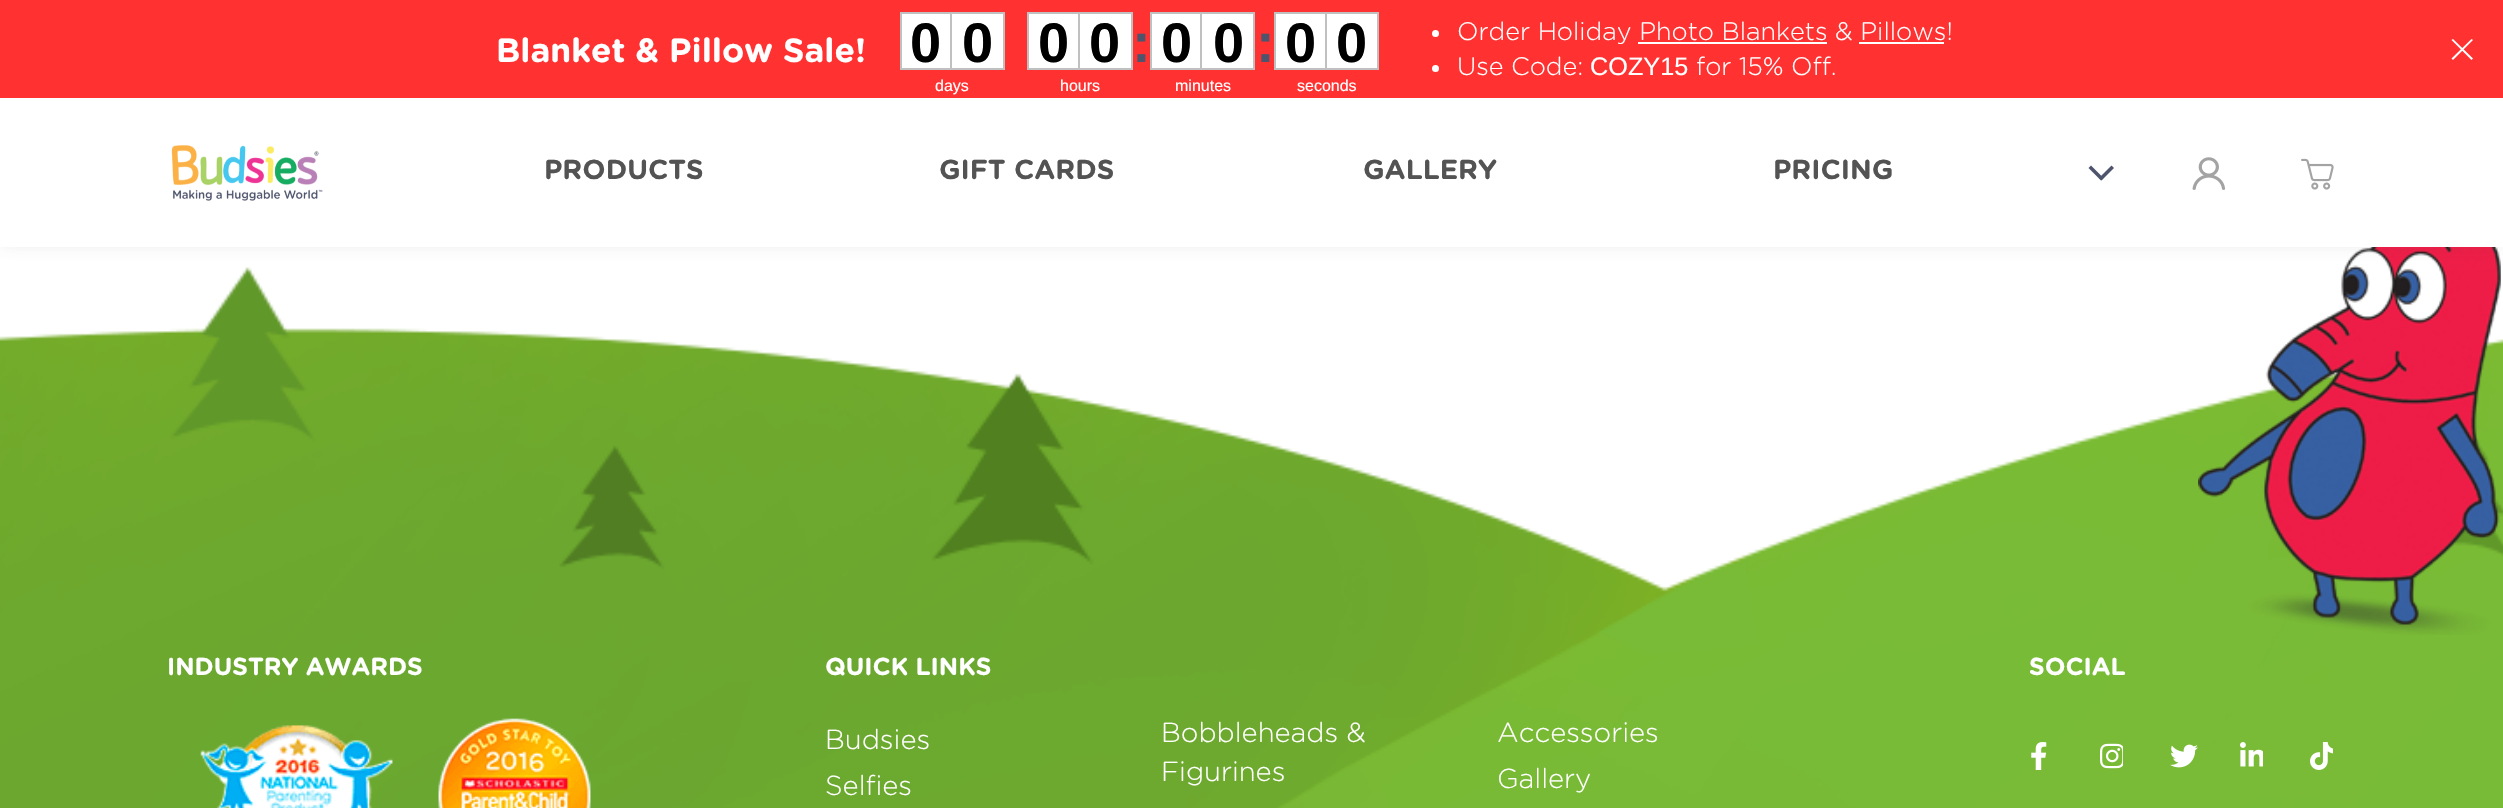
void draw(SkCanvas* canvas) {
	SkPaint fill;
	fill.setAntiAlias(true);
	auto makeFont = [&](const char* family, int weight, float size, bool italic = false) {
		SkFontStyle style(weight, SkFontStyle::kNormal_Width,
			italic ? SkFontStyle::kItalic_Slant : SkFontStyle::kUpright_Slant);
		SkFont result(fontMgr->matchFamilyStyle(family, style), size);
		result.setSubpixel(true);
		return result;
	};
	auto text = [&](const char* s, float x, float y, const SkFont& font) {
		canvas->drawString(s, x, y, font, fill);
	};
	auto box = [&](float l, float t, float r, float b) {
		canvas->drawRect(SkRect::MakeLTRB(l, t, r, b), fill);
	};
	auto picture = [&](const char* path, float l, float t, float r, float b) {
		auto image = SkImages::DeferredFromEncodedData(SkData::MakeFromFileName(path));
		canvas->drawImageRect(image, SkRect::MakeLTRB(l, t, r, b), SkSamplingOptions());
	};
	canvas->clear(0xFFFFFFFF);
	picture("image3.png", 0, 267, 2503, 808);
	picture("image4.png", 2198, 247, 2501, 635);
	fill.setColor(0x26535353);
	fill.setMaskFilter(SkMaskFilter::MakeBlur(kNormal_SkBlurStyle, 9));
	canvas->drawRect(SkRect::MakeLTRB(0, 95, 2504, 243), fill);
	fill.setMaskFilter(nullptr);
	fill.setColor(0xFFFF3131);
	box(0, 0, 2503, 98);
	fill.setColor(0xFFFFFFFF);
	canvas->drawRect(SkRect::MakeLTRB(901, 13, 951, 69), fill);
	fill.setStyle(SkPaint::kStroke_Style);
	fill.setStrokeWidth(2);
	fill.setColor(0xFFC0C0C0);
	canvas->drawRect(SkRect::MakeLTRB(901, 13, 951, 69), fill);
	fill.setStyle(SkPaint::kFill_Style);
	fill.setColor(0xFFFFFFFF);
	box(952, 14, 1003, 68);
	fill.setColor(0xFFC0C0C0);
	box(952, 12, 1005, 14);
	box(1003, 12, 1005, 70);
	box(952, 68, 1005, 70);
	fill.setColor(0xFFFFFFFF);
	canvas->drawRect(SkRect::MakeLTRB(1028, 13, 1079, 69), fill);
	fill.setStyle(SkPaint::kStroke_Style);
	fill.setColor(0xFFC0C0C0);
	canvas->drawRect(SkRect::MakeLTRB(1028, 13, 1079, 69), fill);
	fill.setStyle(SkPaint::kFill_Style);
	fill.setColor(0xFFFFFFFF);
	box(1080, 14, 1131, 68);
	fill.setColor(0xFFC0C0C0);
	box(1080, 12, 1132, 14);
	box(1131, 12, 1133, 70);
	box(1080, 68, 1132, 70);
	fill.setColor(0xFFFFFFFF);
	canvas->drawRect(SkRect::MakeLTRB(1151, 13, 1201, 69), fill);
	fill.setStyle(SkPaint::kStroke_Style);
	fill.setColor(0xFFC0C0C0);
	canvas->drawRect(SkRect::MakeLTRB(1151, 13, 1201, 69), fill);
	fill.setStyle(SkPaint::kFill_Style);
	fill.setColor(0xFFFFFFFF);
	box(1202, 14, 1253, 68);
	fill.setColor(0xFFC0C0C0);
	box(1202, 12, 1255, 14);
	box(1253, 12, 1255, 70);
	box(1202, 68, 1255, 70);
	fill.setColor(0xFFFFFFFF);
	canvas->drawRect(SkRect::MakeLTRB(1275, 13, 1326, 69), fill);
	fill.setStyle(SkPaint::kStroke_Style);
	fill.setColor(0xFFC0C0C0);
	canvas->drawRect(SkRect::MakeLTRB(1275, 13, 1326, 69), fill);
	fill.setStyle(SkPaint::kFill_Style);
	fill.setColor(0xFFFFFFFF);
	box(1327, 14, 1377, 68);
	fill.setColor(0xFFC0C0C0);
	box(1327, 12, 1379, 14);
	box(1377, 12, 1379, 70);
	box(1327, 68, 1379, 70);
	fill.setColor(0xFFFFFFFF);
	canvas->drawCircle(1435.5f, 33.5f, 3.5f, fill);
	box(1638, 42, 1827, 44);
	box(1859, 42, 1944, 44);
	canvas->drawCircle(1435.5f, 68.5f, 3.5f, fill);
	canvas->drawPath(SkPathBuilder().moveTo(2453, 39).lineTo(2473, 58.5f).lineTo(2471.5f, 60).lineTo(2451.5f, 40).close().detach(), fill);
	canvas->drawPath(SkPathBuilder().moveTo(2451.5f, 58.5f).lineTo(2471.5f, 39).lineTo(2473, 40).lineTo(2453, 60).close().detach(), fill);
	box(0, 98, 2503, 247);
	picture("image0.png", 171, 145, 323, 201);
	fill.setColor(0xFF4D546C);
	canvas->drawPath(SkPathBuilder().moveTo(2091, 165.5f).lineTo(2103.5f, 178).lineTo(2101, 180.5f).lineTo(2088.5f, 168).close().detach(), fill);
	canvas->drawPath(SkPathBuilder().moveTo(2099, 178).lineTo(2111.5f, 165.5f).lineTo(2114, 168).lineTo(2101.5f, 180.5f).close().detach(), fill);
	picture("image1.png", 2192, 157, 2226, 190);
	picture("image2.png", 2301, 158, 2334, 190);
	picture("image5.png", 200, 718, 591, 808);
	picture("image6.png", 2031, 742, 2047, 770);
	picture("image7.png", 2100, 743, 2123, 769);
	picture("image8.png", 2170, 744, 2198, 768);
	picture("image9.png", 2240, 742, 2263, 767);
	picture("image10.png", 2310, 742, 2333, 770);
	auto font1 = makeFont("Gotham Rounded", 700, 33.6f);
	fill.setColor(0xFFFFFFFF);
	text("Blanket & Pillow Sale!", 496, 62, font1);
	auto font2 = makeFont("Liberation Sans", 700, 56);
	fill.setColor(0xFF000000);
	text("0", 910, 62, font2);
	text("0", 962, 62, font2);
	auto font3 = makeFont("Liberation Sans", 400, 16);
	fill.setColor(0xFFFFFFFF);
	text("days", 935, 91, font3);
	fill.setColor(0xFF000000);
	text("0", 1038, 62, font2);
	text("0", 1089, 62, font2);
	fill.setColor(0xFFFFFFFF);
	text("hours", 1060, 91, font3);
	fill.setColor(0xFF4D546C);
	text(":", 1132, 62, font2);
	fill.setColor(0xFF000000);
	text("0", 1161, 62, font2);
	text("0", 1213, 62, font2);
	fill.setColor(0xFFFFFFFF);
	text("minutes", 1175, 91, font3);
	fill.setColor(0xFF4D546C);
	text(":", 1256, 62, font2);
	fill.setColor(0xFF000000);
	text("0", 1285, 62, font2);
	text("0", 1336, 62, font2);
	fill.setColor(0xFFFFFFFF);
	text("seconds", 1297, 91, font3);
	auto font4 = makeFont("Gotham Rounded", 300, 25.25f);
	text("Order Holiday Photo Blankets & Pillows!", 1457, 40, font4);
	text("Use Code:", 1457, 75, font4);
	auto font5 = makeFont("Liberation Sans", 400, 25.25f);
	text("COZY15", 1590, 75, font5);
	text("for 15% Off.", 1696, 75, font4);
	auto font6 = makeFont("Gotham Rounded", 700, 27.5f);
	fill.setColor(0xFF535353);
	text("PRODUCTS", 544, 179, font6);
	text("GIFT CARDS", 939, 179, font6);
	text("GALLERY", 1363, 179, font6);
	text("PRICING", 1773, 179, font6);
	auto font7 = makeFont("Gotham Rounded", 700, 24.5f);
	fill.setColor(0xFFFFFFFF);
	text("INDUSTRY AWARDS", 167, 675, font7);
	text("QUICK LINKS", 825, 675, font7);
	auto font8 = makeFont("Gotham Rounded", 300, 27.5f);
	text("Budsies", 825, 749, font8);
	text("Bobbleheads &", 1161, 742, font8);
	text("Figurines", 1161, 781, font8);
	text("Accessories", 1497, 742, font8);
	text("Selfies", 825, 795, font8);
	text("Gallery", 1497, 788, font8);
	text("SOCIAL", 2029, 675, font7);
}
